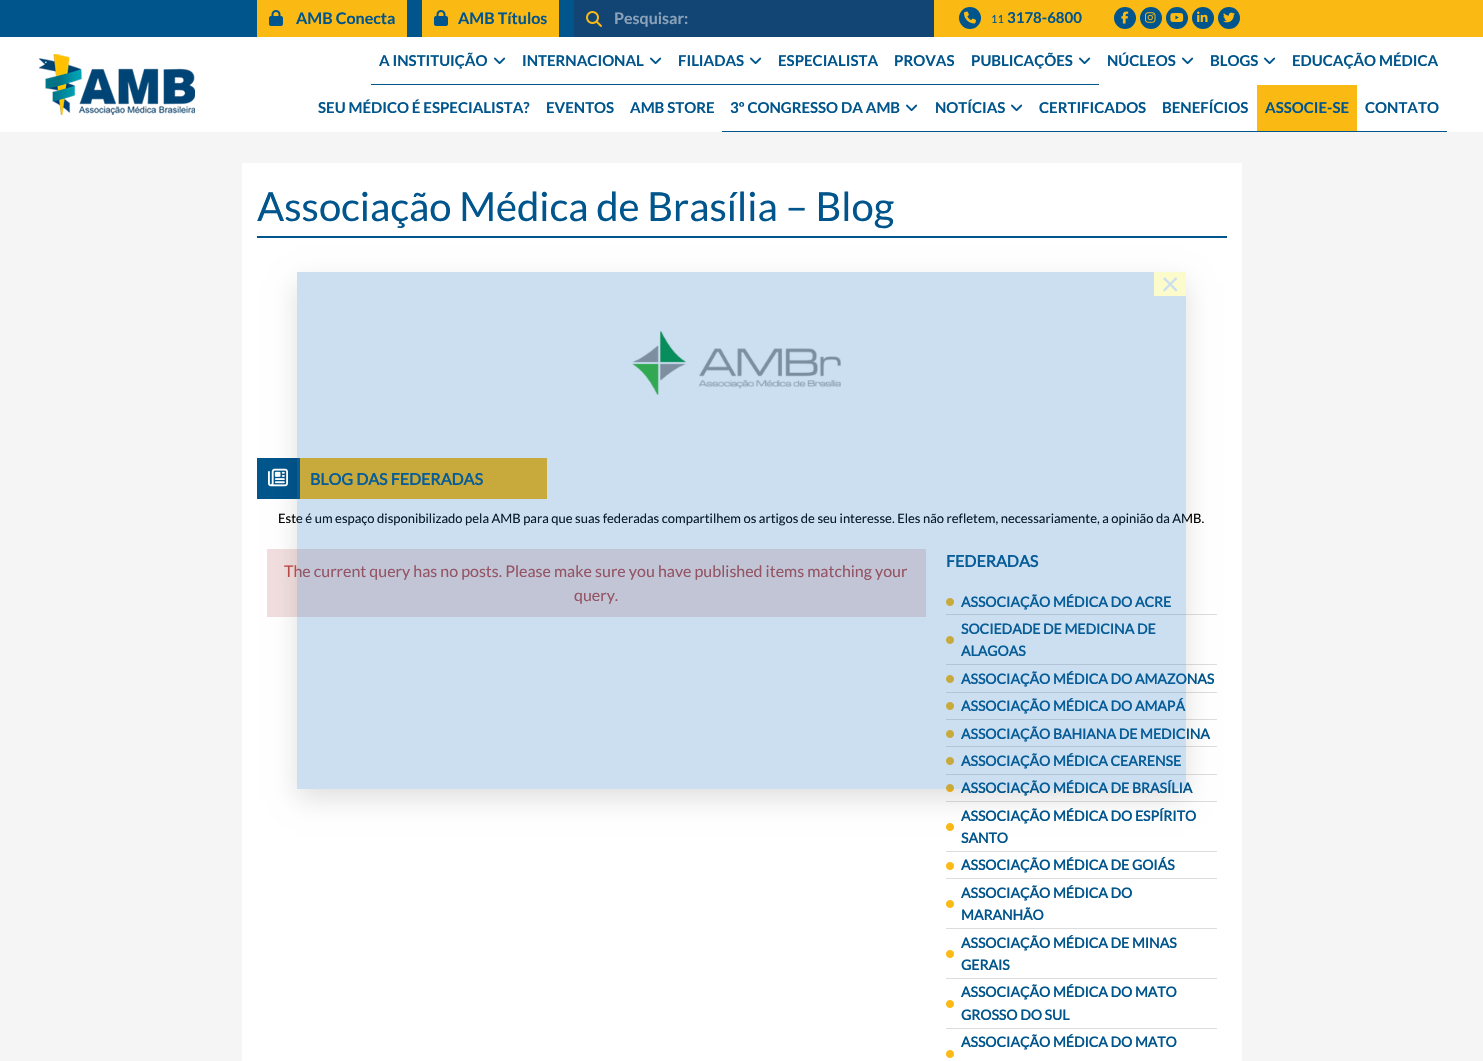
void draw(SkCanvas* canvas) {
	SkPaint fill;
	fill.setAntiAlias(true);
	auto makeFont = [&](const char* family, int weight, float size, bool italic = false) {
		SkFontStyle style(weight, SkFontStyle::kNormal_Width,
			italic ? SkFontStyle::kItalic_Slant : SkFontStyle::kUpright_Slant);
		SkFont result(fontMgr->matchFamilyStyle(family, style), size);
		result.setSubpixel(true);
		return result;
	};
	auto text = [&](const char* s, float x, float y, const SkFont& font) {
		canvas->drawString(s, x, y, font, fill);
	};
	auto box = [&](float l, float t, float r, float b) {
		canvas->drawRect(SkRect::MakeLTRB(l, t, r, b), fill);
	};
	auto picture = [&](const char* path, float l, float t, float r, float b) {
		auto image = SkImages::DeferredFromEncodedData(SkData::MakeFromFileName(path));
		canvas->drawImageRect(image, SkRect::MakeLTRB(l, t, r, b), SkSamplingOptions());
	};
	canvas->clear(0xFFF5F5F5);
	fill.setColor(0xFFFFFFFF);
	box(0, 37, 1483, 132);
	fill.setColor(0xFF00558C);
	box(0, 0, 574, 37);
	fill.setColor(0xFFFBB914);
	box(257, 0, 407, 37);
	picture("image0.png", 269, 10, 283, 26);
	box(422, 0, 559, 37);
	picture("image0.png", 434, 10, 448, 26);
	fill.setColor(0xFF124573);
	box(574, 0, 934, 37);
	picture("image1.png", 586, 11, 602, 27);
	fill.setColor(0xFFFBB914);
	box(934, 0, 1483, 37);
	fill.setColor(0xFF00558C);
	canvas->drawCircle(970, 18, 11, fill);
	picture("image2.png", 964, 11, 976, 24);
	canvas->drawCircle(1125, 18, 11, fill);
	picture("image3.png", 1121, 11, 1129, 24);
	canvas->drawCircle(1151, 18, 11, fill);
	picture("image4.png", 1145, 12, 1156, 23);
	canvas->drawCircle(1177, 18, 11, fill);
	picture("image5.png", 1170, 13, 1184, 22);
	canvas->drawCircle(1203, 18, 11, fill);
	picture("image6.png", 1197, 11, 1208, 22);
	canvas->drawCircle(1229, 18, 11, fill);
	picture("image7.png", 1223, 12, 1235, 23);
	picture("image8.png", 39, 54, 195, 115);
	box(371, 84, 770, 85);
	picture("image9.png", 494, 57, 506, 65);
	picture("image9.png", 650, 57, 662, 65);
	picture("image9.png", 750, 57, 762, 65);
	box(770, 84, 1099, 85);
	picture("image9.png", 1079, 57, 1091, 65);
	picture("image9.png", 1182, 57, 1194, 65);
	picture("image9.png", 1264, 57, 1276, 65);
	box(722, 131, 1031, 132);
	picture("image9.png", 906, 104, 918, 112);
	picture("image9.png", 1011, 104, 1023, 112);
	box(1031, 131, 1447, 132);
	fill.setColor(0xFFFBB914);
	box(1257, 85, 1357, 131);
	fill.setColor(0xFFFFFFFF);
	box(242, 163, 1242, 1061);
	fill.setColor(0xFF00558C);
	box(257, 236, 1227, 238);
	picture("image10.png", 632, 331, 841, 395);
	box(257, 458, 300, 499);
	picture("image11.png", 268, 468, 288, 487);
	fill.setColor(0xFFFBB914);
	box(300, 458, 547, 499);
	fill.setColor(0xFFF2DEDE);
	box(267, 549, 926, 617);
	picture("image12.png", 946, 598, 954, 606);
	fill.setColor(0xFFDDDDDD);
	box(946, 614, 1217, 615);
	picture("image12.png", 946, 636, 954, 644);
	box(946, 664, 1217, 665);
	picture("image12.png", 946, 675, 954, 683);
	box(946, 692, 1217, 693);
	picture("image12.png", 946, 702, 954, 710);
	box(946, 719, 1217, 720);
	picture("image12.png", 946, 730, 954, 738);
	box(946, 746, 1217, 747);
	picture("image12.png", 946, 757, 954, 765);
	box(946, 774, 1217, 775);
	picture("image12.png", 946, 784, 954, 792);
	box(946, 801, 1217, 802);
	picture("image12.png", 946, 823, 954, 831);
	box(946, 851, 1217, 852);
	picture("image12.png", 946, 862, 954, 870);
	box(946, 878, 1217, 879);
	picture("image12.png", 946, 900, 954, 908);
	box(946, 928, 1217, 929);
	picture("image12.png", 946, 950, 954, 958);
	box(946, 978, 1217, 979);
	picture("image12.png", 946, 1000, 954, 1008);
	box(946, 1028, 1217, 1029);
	picture("image12.png", 946, 1050, 954, 1058);
	canvas->save();
	canvas->clipPath(SkPathBuilder(SkPathFillType::kEvenOdd).moveTo(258, 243).lineTo(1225, 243).lineTo(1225, 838).lineTo(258, 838).close().moveTo(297, 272).lineTo(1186, 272).lineTo(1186, 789).lineTo(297, 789).close().detach(), true);
	fill.setColor(0x1F020202);
	fill.setMaskFilter(SkMaskFilter::MakeBlur(kNormal_SkBlurStyle, 12.5f));
	canvas->drawRect(SkRect::MakeLTRB(297, 282, 1186, 799), fill);
	fill.setMaskFilter(nullptr);
	canvas->restore();
	auto font1 = makeFont("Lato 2", 700, 16);
	fill.setColor(0xFF00558C);
	text("AMB Conecta", 296, 24, font1);
	text("AMB Títulos", 458, 24, font1);
	fill.setColor(0xFF89A2B9);
	text("Pesquisar:", 614, 24, font1);
	auto font2 = makeFont("Lato", 400, 11);
	fill.setColor(0xFF00558C);
	text("11", 991, 23, font2);
	auto font3 = makeFont("Lato 2", 700, 15);
	text("3178-6800", 1007, 23, font3);
	text("A INSTITUIÇÃO", 379, 66, font3);
	text("INTERNACIONAL", 522, 66, font3);
	text("FILIADAS", 678, 66, font3);
	text("ESPECIALISTA", 778, 66, font3);
	text("PROVAS", 894, 66, font3);
	text("PUBLICAÇÕES", 971, 66, font3);
	text("NÚCLEOS", 1107, 66, font3);
	text("BLOGS", 1210, 66, font3);
	text("EDUCAÇÃO MÉDICA", 1292, 66, font3);
	text("SEU MÉDICO É ESPECIALISTA?", 318, 113, font3);
	text("EVENTOS", 546, 113, font3);
	text("AMB STORE", 630, 113, font3);
	text("3º CONGRESSO DA AMB", 730, 113, font3);
	text("NOTÍCIAS", 935, 113, font3);
	text("CERTIFICADOS", 1039, 113, font3);
	text("BENEFÍCIOS", 1162, 113, font3);
	text("ASSOCIE-SE", 1265, 113, font3);
	text("CONTATO", 1365, 113, font3);
	auto font4 = makeFont("Lato", 400, 40);
	text("Associação Médica de Brasília – Blog", 257, 221, font4);
	auto font5 = makeFont("Lato", 700, 16);
	text("BLOG DAS FEDERADAS", 310, 485, font5);
	auto font6 = makeFont("Lato", 400, 13);
	fill.setColor(0xFF000000);
	text("Este é um espaço disponibilizado pela AMB para que suas federadas compartilhem os artigos de seu interesse. Eles não refletem, necessariamente, a opinião da AMB.", 278, 523, font6);
	auto font7 = makeFont("Lato", 400, 16);
	fill.setColor(0xFFB94A48);
	text("The current query has no posts. Please make sure you have published items matching your", 284, 577, font7);
	text("query.", 574, 601, font7);
	fill.setColor(0xFF00558C);
	text("FEDERADAS", 946, 567, font5);
	auto font8 = makeFont("Lato", 700, 14);
	text("ASSOCIAÇÃO MÉDICA DO ACRE", 961, 607, font8);
	text("SOCIEDADE DE MEDICINA DE", 961, 634, font8);
	text("ALAGOAS", 961, 656, font8);
	text("ASSOCIAÇÃO MÉDICA DO AMAZONAS", 961, 684, font8);
	text("ASSOCIAÇÃO MÉDICA DO AMAPÁ", 961, 711, font8);
	text("ASSOCIAÇÃO BAHIANA DE MEDICINA", 961, 739, font8);
	text("ASSOCIAÇÃO MÉDICA CEARENSE", 961, 766, font8);
	text("ASSOCIAÇÃO MÉDICA DE BRASÍLIA", 961, 793, font8);
	text("ASSOCIAÇÃO MÉDICA DO ESPÍRITO", 961, 821, font8);
	text("SANTO", 961, 843, font8);
	text("ASSOCIAÇÃO MÉDICA DE GOIÁS", 961, 870, font8);
	text("ASSOCIAÇÃO MÉDICA DO", 961, 898, font8);
	text("MARANHÃO", 961, 920, font8);
	text("ASSOCIAÇÃO MÉDICA DE MINAS", 961, 948, font8);
	text("GERAIS", 961, 970, font8);
	text("ASSOCIAÇÃO MÉDICA DO MATO", 961, 997, font8);
	text("GROSSO DO SUL", 961, 1020, font8);
	text("ASSOCIAÇÃO MÉDICA DO MATO", 961, 1047, font8);
	fill.setColor(0x3B1E73BE);
	box(297, 272, 1186, 789);
	fill.setColor(0xFFFBFBCC);
	box(1154, 272, 1186, 296);
	auto font9 = makeFont("Lato", 400, 32);
	fill.setColor(0xFFCBDFF0);
	text("×", 1161, 295, font9);
}
